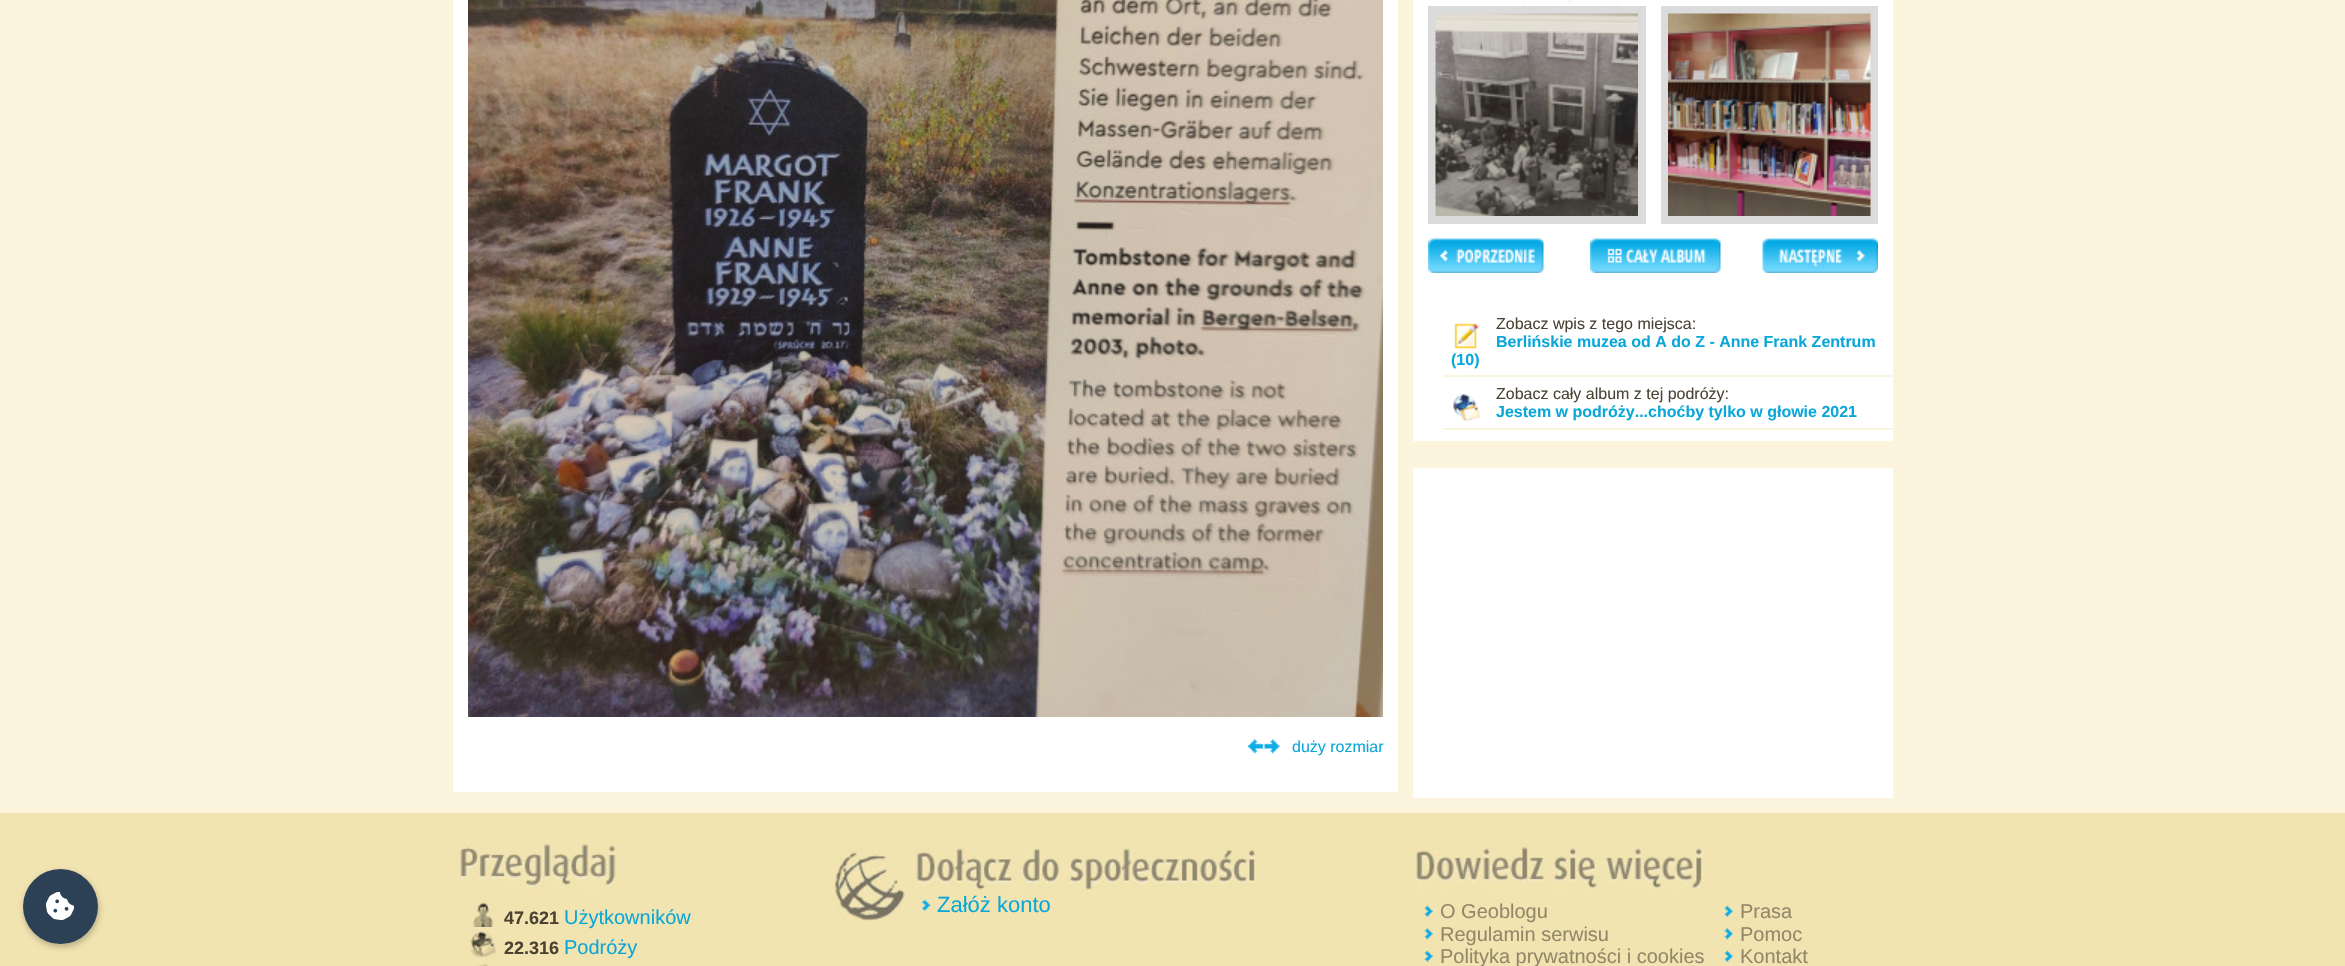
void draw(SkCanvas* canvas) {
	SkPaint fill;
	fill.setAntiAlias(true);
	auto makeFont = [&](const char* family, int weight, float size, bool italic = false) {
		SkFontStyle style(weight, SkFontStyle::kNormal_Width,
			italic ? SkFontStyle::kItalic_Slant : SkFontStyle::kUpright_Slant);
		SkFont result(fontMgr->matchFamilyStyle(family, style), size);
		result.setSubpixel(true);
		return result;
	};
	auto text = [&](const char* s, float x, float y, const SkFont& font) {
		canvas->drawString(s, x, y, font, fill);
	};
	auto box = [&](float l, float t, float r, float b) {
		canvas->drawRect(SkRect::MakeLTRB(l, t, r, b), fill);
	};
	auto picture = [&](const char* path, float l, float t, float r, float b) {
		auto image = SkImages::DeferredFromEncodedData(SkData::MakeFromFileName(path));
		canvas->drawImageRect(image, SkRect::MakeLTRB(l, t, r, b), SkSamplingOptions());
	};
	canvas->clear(0xFFFCF4DD);
	fill.setColor(0xFFFFFFFF);
	box(1413, 0, 1893, 441);
	picture("image0.png", 1522, 0, 1620, 4);
	fill.setStyle(SkPaint::kStroke_Style);
	fill.setStrokeWidth(8);
	fill.setColor(0xFFDBDBDB);
	canvas->drawRect(SkRect::MakeLTRB(1432, 10, 1642, 220), fill);
	picture("image1.png", 1435, 13, 1638, 216);
	canvas->drawRect(SkRect::MakeLTRB(1665, 10, 1874, 220), fill);
	picture("image2.png", 1668, 13, 1871, 216);
	picture("image3.png", 1428, 238, 1544, 273);
	picture("image4.png", 1590, 238, 1721, 273);
	picture("image5.png", 1762, 238, 1878, 273);
	fill.setStyle(SkPaint::kFill_Style);
	fill.setColor(0xFFFAF5DF);
	box(1443, 375, 1893, 377);
	picture("image6.png", 1454, 323, 1480, 349);
	box(1443, 428, 1893, 430);
	picture("image7.png", 1453, 394, 1481, 422);
	fill.setColor(0xFFFFFFFF);
	box(1413, 468, 1893, 798);
	box(453, 0, 1398, 792);
	picture("image8.png", 468, 0, 1383, 717);
	picture("image9.png", 1248, 739, 1280, 754);
	fill.setColor(0xFFF2E4B1);
	box(0, 813, 2345, 966);
	fill.setColor(0x40000000);
	fill.setMaskFilter(SkMaskFilter::MakeBlur(kNormal_SkBlurStyle, 3));
	canvas->drawRoundRect(SkRect::MakeLTRB(24, 872, 99, 947), 37.5f, 37.5f, fill);
	fill.setMaskFilter(nullptr);
	fill.setColor(0xFF2D4156);
	canvas->drawCircle(60.5f, 906.5f, 37.5f, fill);
	picture("image10.png", 45, 891, 75, 921);
	picture("image11.png", 831, 846, 909, 924);
	picture("image12.png", 911, 846, 1261, 892);
	picture("image13.png", 918, 897, 931, 915);
	picture("image14.png", 459, 843, 616, 891);
	picture("image15.png", 470, 902, 494, 927);
	picture("image16.png", 469, 931, 497, 957);
	picture("image17.png", 475, 964, 488, 966);
	picture("image18.png", 1415, 846, 1704, 892);
	picture("image19.png", 1420, 903, 1434, 921);
	picture("image20.png", 1420, 925, 1434, 944);
	picture("image19.png", 1420, 948, 1434, 966);
	picture("image21.png", 1720, 903, 1734, 921);
	picture("image22.png", 1720, 925, 1734, 944);
	picture("image21.png", 1720, 948, 1734, 966);
	auto font1 = makeFont("Liberation Sans", 400, 16);
	fill.setColor(0xFF4B4233);
	text("Zobacz wpis z tego miejsca:", 1496, 329, font1);
	auto font2 = makeFont("Liberation Sans", 700, 16);
	fill.setColor(0xFF0BA7D8);
	text("Berlińskie muzea od A do Z - Anne Frank Zentrum", 1496, 347, font2);
	text("(10)", 1451, 365, font2);
	fill.setColor(0xFF4B4233);
	text("Zobacz cały album z tej podróży:", 1496, 399, font1);
	fill.setColor(0xFF0BA7D8);
	text("Jestem w podróży...choćby tylko w głowie 2021", 1496, 417, font2);
	text("duży rozmiar", 1292, 752, font1);
	auto font3 = makeFont("Liberation Sans", 400, 22);
	text("Załóż konto", 937, 912, font3);
	auto font4 = makeFont("Liberation Sans", 700, 18);
	fill.setColor(0xFF4B4233);
	text("47.621", 504, 924, font4);
	auto font5 = makeFont("Liberation Sans", 400, 20);
	fill.setColor(0xFF0BA7D8);
	text("Użytkowników", 564, 924, font5);
	fill.setColor(0xFF4B4233);
	text("22.316", 504, 954, font4);
	fill.setColor(0xFF0BA7D8);
	text("Podróży", 564, 954, font5);
	fill.setColor(0xFF92886A);
	text("O Geoblogu", 1440, 918, font5);
	text("Regulamin serwisu", 1440, 941, font5);
	text("Polityka prywatności i cookies", 1440, 963, font5);
	text("Prasa", 1740, 918, font5);
	text("Pomoc", 1740, 941, font5);
	text("Kontakt", 1740, 963, font5);
}
